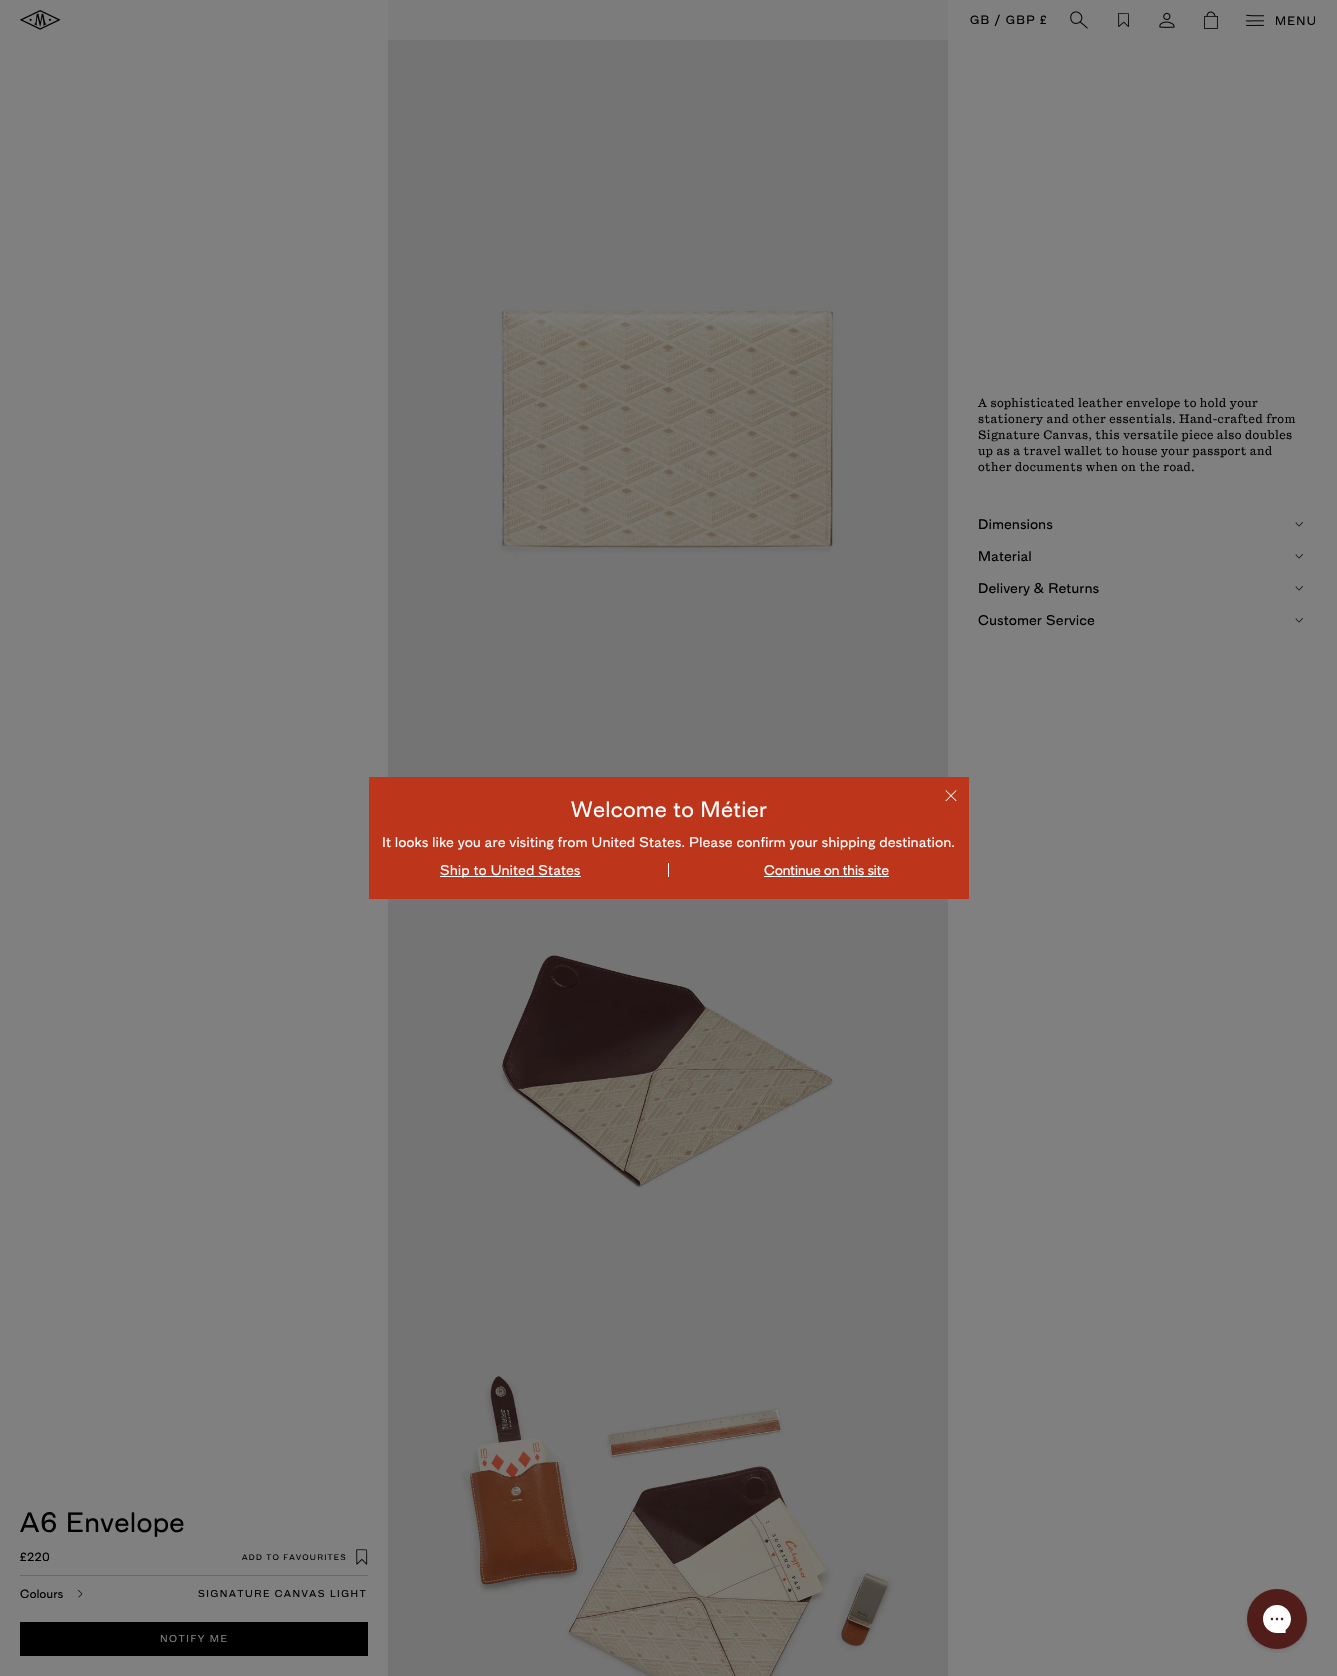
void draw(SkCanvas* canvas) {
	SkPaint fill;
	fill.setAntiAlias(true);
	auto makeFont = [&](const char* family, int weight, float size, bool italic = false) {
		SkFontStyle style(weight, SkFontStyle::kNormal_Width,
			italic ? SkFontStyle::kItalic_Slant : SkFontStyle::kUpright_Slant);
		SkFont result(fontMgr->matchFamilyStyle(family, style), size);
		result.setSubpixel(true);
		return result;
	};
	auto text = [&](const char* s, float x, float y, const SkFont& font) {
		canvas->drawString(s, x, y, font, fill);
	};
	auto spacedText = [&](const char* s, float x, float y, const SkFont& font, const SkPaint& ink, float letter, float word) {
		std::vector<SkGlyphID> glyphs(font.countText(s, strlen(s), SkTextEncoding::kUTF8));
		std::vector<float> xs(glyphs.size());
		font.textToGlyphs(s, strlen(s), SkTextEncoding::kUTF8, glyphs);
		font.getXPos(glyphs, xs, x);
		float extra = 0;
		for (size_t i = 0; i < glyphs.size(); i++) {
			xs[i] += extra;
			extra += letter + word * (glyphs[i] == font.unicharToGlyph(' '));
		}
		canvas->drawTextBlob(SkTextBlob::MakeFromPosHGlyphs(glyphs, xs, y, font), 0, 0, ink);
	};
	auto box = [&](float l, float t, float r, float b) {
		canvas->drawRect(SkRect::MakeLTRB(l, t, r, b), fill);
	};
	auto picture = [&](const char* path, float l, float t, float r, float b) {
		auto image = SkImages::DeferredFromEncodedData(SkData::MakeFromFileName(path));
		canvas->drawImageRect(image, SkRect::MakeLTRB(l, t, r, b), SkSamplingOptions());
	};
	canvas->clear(0xFF808080);
	fill.setColor(0xFF747474);
	box(388, 0, 948, 9);
	picture("image6.png", 388, 9, 948, 649);
	fill.setColor(0x99808080);
	box(388, 0, 948, 40);
	picture("image0.png", 20, 10, 61, 30);
	picture("image1.png", 1070, 11, 1088, 29);
	picture("image2.png", 1118, 13, 1129, 27);
	picture("image3.png", 1159, 12, 1175, 28);
	picture("image4.png", 1204, 11, 1218, 29);
	picture("image5.png", 1246, 14, 1264, 26);
	picture("image7.png", 1295, 522, 1303, 527);
	picture("image7.png", 1295, 554, 1303, 559);
	picture("image7.png", 1295, 586, 1303, 591);
	picture("image7.png", 1295, 618, 1303, 623);
	picture("image8.png", 388, 649, 948, 1289);
	picture("image9.png", 388, 1289, 948, 1676);
	picture("image10.png", 356, 1549, 368, 1565);
	fill.setColor(0xFF68686B);
	box(20, 1575, 368, 1576);
	picture("image11.png", 78, 1590, 83, 1598);
	fill.setColor(0xFF000000);
	box(20, 1622, 368, 1656);
	fill.setColor(0xFFBD351A);
	box(369, 777, 969, 899);
	picture("image12.png", 945, 790, 957, 802);
	fill.setColor(0xFFFFFFFF);
	box(440, 876, 581, 877);
	box(668, 863, 669, 877);
	box(764, 876, 889, 877);
	picture("image13.png", 1245, 1589, 1309, 1653);
	auto font1 = makeFont("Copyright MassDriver", 400, 12);
	fill.setColor(0xFF000000);
	spacedText("GB / GBP £", 970, 24, font1, fill, 1.25f, 0);
	spacedText("MENU", 1275, 25, font1, fill, 1.25f, 0);
	auto font2 = makeFont("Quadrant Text", 400, 12);
	spacedText("A sophisticated leather envelope to hold your", 978, 407, font2, fill, 0.35f, 0);
	spacedText("stationery and other essentials. Hand-crafted from", 978, 423, font2, fill, 0.35f, 0);
	spacedText("Signature Canvas, this versatile piece also doubles", 978, 439, font2, fill, 0.35f, 0);
	spacedText("up as a travel wallet to house your passport and", 978, 455, font2, fill, 0.35f, 0);
	spacedText("other documents when on the road.", 978, 471, font2, fill, 0.35f, 0);
	auto font3 = makeFont("Copyright MassDriver", 400, 14);
	spacedText("Dimensions", 978, 529, font3, fill, 0.42f, 0);
	spacedText("Material", 978, 561, font3, fill, 0.42f, 0);
	spacedText("Delivery & Returns", 978, 593, font3, fill, 0.42f, 0);
	spacedText("Customer Service", 978, 625, font3, fill, 0.42f, 0);
	auto font4 = makeFont("Copyright MassDriver", 400, 28);
	spacedText("A6 Envelope", 20, 1532, font4, fill, 0.75f, 0);
	spacedText("£220", 20, 1561, font1, fill, 0.35f, 0);
	auto font5 = makeFont("Copyright MassDriver", 400, 8);
	spacedText("ADD TO FAVOURITES", 242, 1560, font5, fill, 1.25f, 0);
	spacedText("Colours", 20, 1598, font1, fill, 0.35f, 0);
	auto font6 = makeFont("Copyright MassDriver", 400, 10);
	spacedText("SIGNATURE CANVAS LIGHT", 198, 1597, font6, fill, 1.5f, 0);
	fill.setColor(0xFF808080);
	spacedText("NOTIFY ME", 160, 1642, font6, fill, 1.5f, 0);
	auto font7 = makeFont("Copyright MassDriver", 400, 22);
	fill.setColor(0xFFFFFFFF);
	spacedText("Welcome to Métier", 571, 817, font7, fill, 0.7f, 0);
	spacedText("It looks like you are visiting from United States. Please confirm your shipping destination.", 382, 847, font3, fill, 0.42f, 0);
	spacedText("Ship to United States", 440, 875, font3, fill, 0.42f, 0);
	text("Continue on this site", 764, 875, font3);
}
